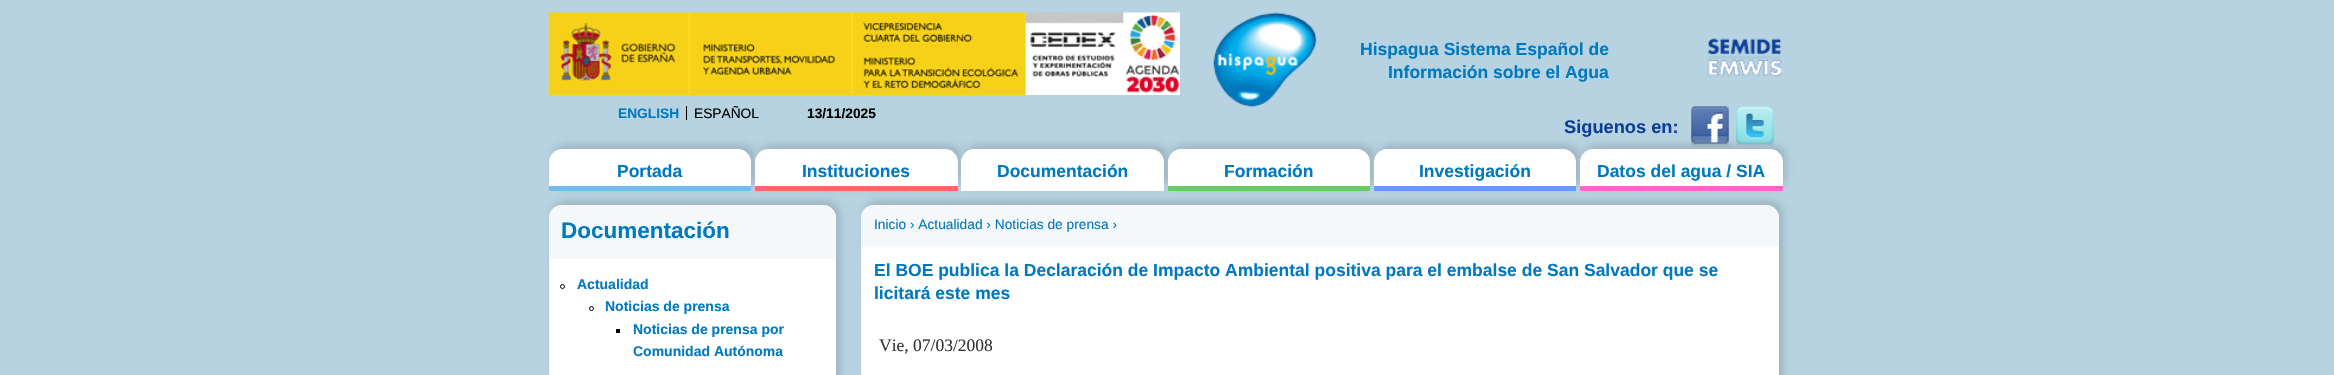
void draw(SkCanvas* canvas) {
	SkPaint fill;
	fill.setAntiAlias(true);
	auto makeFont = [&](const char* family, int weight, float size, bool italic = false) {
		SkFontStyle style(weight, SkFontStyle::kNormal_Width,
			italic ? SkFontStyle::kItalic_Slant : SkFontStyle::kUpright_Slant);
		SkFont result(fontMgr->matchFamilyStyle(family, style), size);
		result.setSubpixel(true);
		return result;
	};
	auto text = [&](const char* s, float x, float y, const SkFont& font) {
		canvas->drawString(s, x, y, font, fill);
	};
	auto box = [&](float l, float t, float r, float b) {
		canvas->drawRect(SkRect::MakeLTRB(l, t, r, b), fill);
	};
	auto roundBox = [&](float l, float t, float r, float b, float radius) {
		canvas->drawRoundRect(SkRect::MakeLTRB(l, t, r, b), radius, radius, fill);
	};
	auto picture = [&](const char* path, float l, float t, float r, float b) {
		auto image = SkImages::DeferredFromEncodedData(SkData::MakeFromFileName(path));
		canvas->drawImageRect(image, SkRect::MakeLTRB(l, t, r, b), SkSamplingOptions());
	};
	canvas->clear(0xFFB7D3E1);
	picture("image0.png", 548, 12, 1180, 95);
	picture("image1.png", 1213, 12, 1317, 107);
	picture("image2.png", 1707, 38, 1782, 77);
	fill.setColor(0xFF000000);
	box(686, 106, 687, 120);
	picture("image3.png", 1690, 106, 1730, 147);
	picture("image4.png", 1736, 106, 1774, 146);
	fill.setColor(0xFF9CB3BF);
	fill.setMaskFilter(SkMaskFilter::MakeBlur(kNormal_SkBlurStyle, 4.5f));
	canvas->drawRoundRect(SkRect::MakeLTRB(553, 145, 755, 188), 13, 13, fill);
	fill.setMaskFilter(nullptr);
	fill.setColor(0xFFFFFFFF);
	canvas->drawPath(SkPathBuilder().moveTo(562, 149).lineTo(738, 149).cubicTo(745, 149, 751, 155, 751, 162).lineTo(751, 191).lineTo(549, 191).lineTo(549, 162).cubicTo(549, 155, 555, 149, 562, 149).close().detach(), fill);
	fill.setColor(0xFF72BCEB);
	box(549, 186, 751, 191);
	fill.setColor(0xFF9CB3BF);
	fill.setMaskFilter(SkMaskFilter::MakeBlur(kNormal_SkBlurStyle, 4.5f));
	canvas->drawRoundRect(SkRect::MakeLTRB(759, 145, 961, 188), 13, 13, fill);
	fill.setMaskFilter(nullptr);
	fill.setMaskFilter(SkMaskFilter::MakeBlur(kNormal_SkBlurStyle, 4.5f));
	canvas->drawRoundRect(SkRect::MakeLTRB(865, 201, 1783, 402), 13, 13, fill);
	fill.setMaskFilter(nullptr);
	fill.setColor(0xFFFFFFFF);
	canvas->drawPath(SkPathBuilder().moveTo(768, 149).lineTo(945, 149).cubicTo(952, 149, 958, 155, 958, 162).lineTo(958, 191).lineTo(755, 191).lineTo(755, 162).cubicTo(755, 155, 761, 149, 768, 149).close().detach(), fill);
	fill.setColor(0xFFFF6766);
	box(755, 186, 958, 191);
	fill.setColor(0xFF9CB3BF);
	fill.setMaskFilter(SkMaskFilter::MakeBlur(kNormal_SkBlurStyle, 4.5f));
	canvas->drawRoundRect(SkRect::MakeLTRB(965, 145, 1168, 188), 13, 13, fill);
	fill.setMaskFilter(nullptr);
	fill.setColor(0xFFFFFFFF);
	canvas->drawPath(SkPathBuilder().moveTo(974, 149).lineTo(1151, 149).cubicTo(1158, 149, 1164, 155, 1164, 162).lineTo(1164, 191).lineTo(961, 191).lineTo(961, 162).cubicTo(961, 155, 967, 149, 974, 149).close().detach(), fill);
	fill.setColor(0xFF9CB3BF);
	fill.setMaskFilter(SkMaskFilter::MakeBlur(kNormal_SkBlurStyle, 4.5f));
	canvas->drawRoundRect(SkRect::MakeLTRB(1171, 145, 1374, 188), 13, 13, fill);
	fill.setMaskFilter(nullptr);
	fill.setColor(0xFFFFFFFF);
	canvas->drawPath(SkPathBuilder().moveTo(1181, 149).lineTo(1357, 149).cubicTo(1364, 149, 1370, 155, 1370, 162).lineTo(1370, 191).lineTo(1168, 191).lineTo(1168, 162).cubicTo(1168, 155, 1174, 149, 1181, 149).close().detach(), fill);
	fill.setColor(0xFF66CC66);
	box(1168, 186, 1370, 191);
	fill.setColor(0xFF9CB3BF);
	fill.setMaskFilter(SkMaskFilter::MakeBlur(kNormal_SkBlurStyle, 4.5f));
	canvas->drawRoundRect(SkRect::MakeLTRB(1378, 145, 1580, 188), 13, 13, fill);
	fill.setMaskFilter(nullptr);
	fill.setColor(0xFFFFFFFF);
	canvas->drawPath(SkPathBuilder().moveTo(1387, 149).lineTo(1563, 149).cubicTo(1570, 149, 1576, 155, 1576, 162).lineTo(1576, 191).lineTo(1374, 191).lineTo(1374, 162).cubicTo(1374, 155, 1380, 149, 1387, 149).close().detach(), fill);
	fill.setColor(0xFF6599FE);
	box(1374, 186, 1576, 191);
	fill.setColor(0xFF9CB3BF);
	fill.setMaskFilter(SkMaskFilter::MakeBlur(kNormal_SkBlurStyle, 4.5f));
	canvas->drawRoundRect(SkRect::MakeLTRB(1584, 145, 1786, 188), 13, 13, fill);
	fill.setMaskFilter(nullptr);
	fill.setColor(0xFFFFFFFF);
	canvas->drawPath(SkPathBuilder().moveTo(1593, 149).lineTo(1770, 149).cubicTo(1777, 149, 1783, 155, 1783, 162).lineTo(1783, 191).lineTo(1580, 191).lineTo(1580, 162).cubicTo(1580, 155, 1586, 149, 1593, 149).close().detach(), fill);
	fill.setColor(0xFFFE66CB);
	box(1580, 186, 1783, 191);
	fill.setColor(0xFF9CB3BF);
	fill.setMaskFilter(SkMaskFilter::MakeBlur(kNormal_SkBlurStyle, 4.5f));
	canvas->drawRoundRect(SkRect::MakeLTRB(553, 201, 840, 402), 13, 13, fill);
	fill.setMaskFilter(nullptr);
	fill.setColor(0xFFFFFFFF);
	roundBox(549, 205, 836, 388, 13);
	fill.setColor(0xFFF4F8FB);
	canvas->drawPath(SkPathBuilder().moveTo(562, 205).lineTo(823, 205).cubicTo(830, 205, 836, 211, 836, 218).lineTo(836, 259).lineTo(549, 259).lineTo(549, 218).cubicTo(549, 211, 555, 205, 562, 205).close().detach(), fill);
	fill.setStyle(SkPaint::kStroke_Style);
	fill.setStrokeWidth(1);
	fill.setColor(0xFF000000);
	canvas->drawCircle(562.5f, 286.5f, 2, fill);
	canvas->drawCircle(591.5f, 308.5f, 2, fill);
	fill.setStyle(SkPaint::kFill_Style);
	box(616, 329, 620, 333);
	fill.setColor(0xFFFFFFFF);
	roundBox(861, 205, 1779, 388, 13);
	fill.setColor(0xFFF4F8FB);
	canvas->drawPath(SkPathBuilder().moveTo(874, 205).lineTo(1766, 205).cubicTo(1773, 205, 1779, 211, 1779, 218).lineTo(1779, 246).lineTo(861, 246).lineTo(861, 218).cubicTo(861, 211, 867, 205, 874, 205).close().detach(), fill);
	auto font1 = makeFont("Liberation Sans", 700, 17.5f);
	fill.setColor(0xFF0079BE);
	text("Hispagua Sistema Español de", 1360, 55, font1);
	text("Información sobre el Agua", 1388, 78, font1);
	auto font2 = makeFont("Liberation Sans", 700, 13.75f);
	text("ENGLISH", 618, 118, font2);
	auto font3 = makeFont("Liberation Sans", 400, 13.75f);
	fill.setColor(0xFF000000);
	text("ESPAÑOL", 694, 118, font3);
	text("13/11/2025", 807, 118, font2);
	auto font4 = makeFont("Liberation Sans", 700, 18.25f);
	fill.setColor(0xFF0D3E95);
	text("Siguenos en:", 1564, 133, font4);
	fill.setColor(0xFF0079BE);
	text("Portada", 617, 177, font1);
	text("Instituciones", 802, 177, font1);
	text("Documentación", 997, 177, font1);
	text("Formación", 1224, 177, font1);
	text("Investigación", 1419, 177, font1);
	text("Datos del agua / SIA", 1597, 177, font1);
	auto font5 = makeFont("Liberation Sans", 700, 22.5f);
	text("Documentación", 561, 238, font5);
	auto font6 = makeFont("Liberation Sans", 700, 14);
	text("Actualidad", 577, 289, font6);
	text("Noticias de prensa", 605, 311, font6);
	text("Noticias de prensa por", 633, 334, font6);
	text("Comunidad Autónoma", 633, 356, font6);
	text("Inicio › Actualidad › Noticias de prensa ›", 874, 229, font3);
	text("El BOE publica la Declaración de Impacto Ambiental positiva para el embalse de San Salvador que se", 874, 276, font1);
	text("licitará este mes", 874, 299, font1);
	auto font7 = makeFont("Liberation Serif", 400, 17.5f);
	fill.setColor(0xFF333333);
	text("Vie, 07/03/2008", 879, 351, font7);
}
